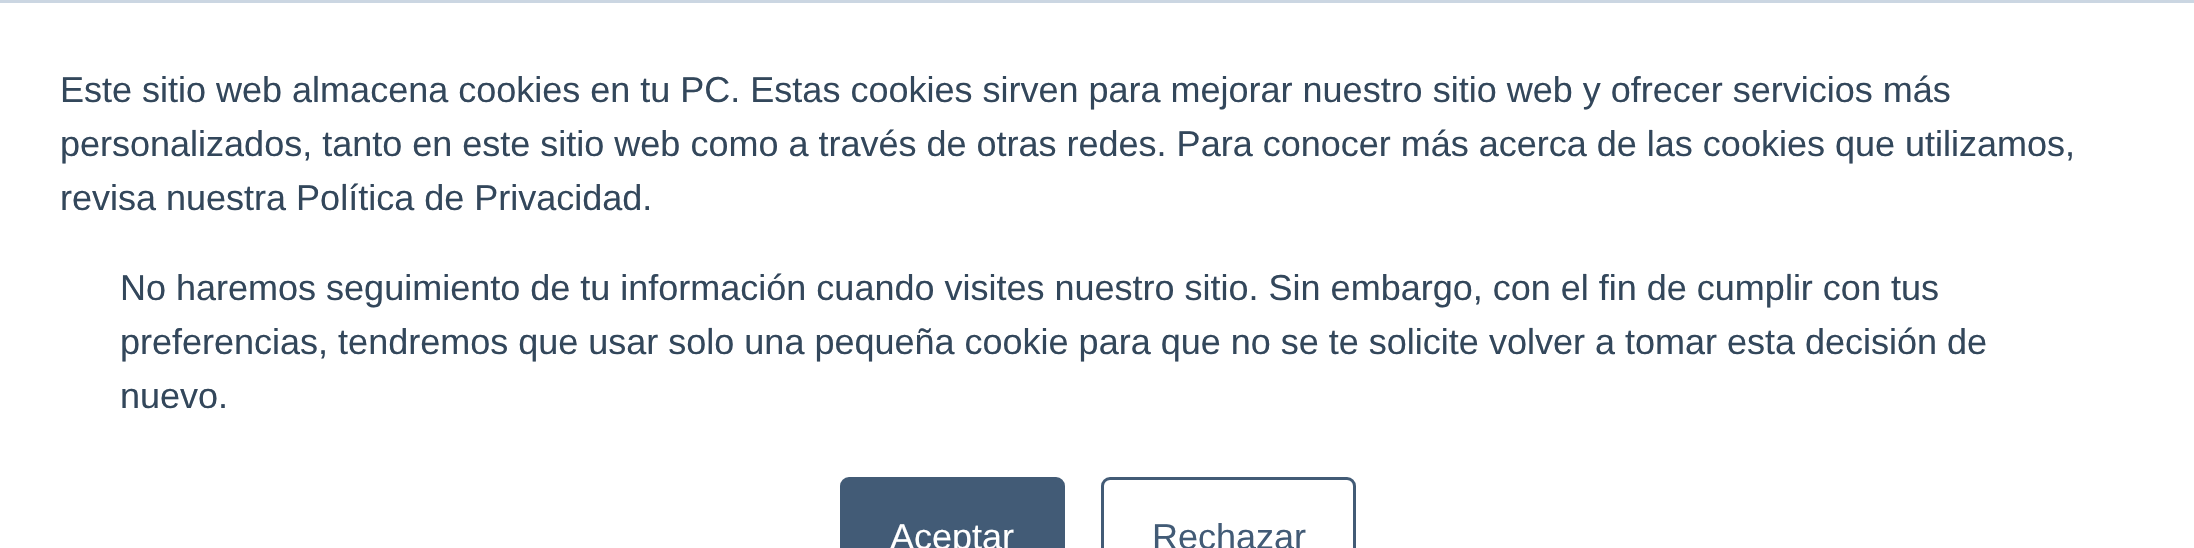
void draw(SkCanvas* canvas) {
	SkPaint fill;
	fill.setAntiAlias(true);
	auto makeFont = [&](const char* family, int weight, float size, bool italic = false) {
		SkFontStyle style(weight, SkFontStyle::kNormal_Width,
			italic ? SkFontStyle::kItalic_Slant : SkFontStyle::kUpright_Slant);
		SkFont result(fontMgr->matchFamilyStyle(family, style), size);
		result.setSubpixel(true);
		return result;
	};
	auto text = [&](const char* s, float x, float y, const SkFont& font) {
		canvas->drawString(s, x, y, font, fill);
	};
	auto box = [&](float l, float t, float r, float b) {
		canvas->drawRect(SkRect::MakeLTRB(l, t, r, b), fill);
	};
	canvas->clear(0xFFFFFFFF);
	fill.setColor(0xFFCBD6E2);
	box(0, 0, 2194, 3);
	fill.setColor(0xFF425B76);
	canvas->drawRoundRect(SkRect::MakeLTRB(841.5f, 478.5f, 1063.5f, 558.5f), 7.5f, 7.5f, fill);
	fill.setStyle(SkPaint::kStroke_Style);
	fill.setStrokeWidth(3);
	canvas->drawRoundRect(SkRect::MakeLTRB(841.5f, 478.5f, 1063.5f, 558.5f), 7.5f, 7.5f, fill);
	canvas->drawRoundRect(SkRect::MakeLTRB(1102.5f, 478.5f, 1354.5f, 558.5f), 7.5f, 7.5f, fill);
	auto font1 = makeFont("Liberation Sans", 400, 36);
	fill.setStyle(SkPaint::kFill_Style);
	fill.setColor(0xFF33475B);
	text("Este sitio web almacena cookies en tu PC. Estas cookies sirven para mejorar nuestro sitio web y ofrecer servicios más", 60, 102, font1);
	text("personalizados, tanto en este sitio web como a través de otras redes. Para conocer más acerca de las cookies que utilizamos,", 60, 156, font1);
	text("revisa nuestra Política de Privacidad.", 60, 210, font1);
	text("No haremos seguimiento de tu información cuando visites nuestro sitio. Sin embargo, con el fin de cumplir con tus", 120, 300, font1);
	text("preferencias, tendremos que usar solo una pequeña cookie para que no se te solicite volver a tomar esta decisión de", 120, 354, font1);
	text("nuevo.", 120, 408, font1);
	fill.setColor(0xFFFFFFFF);
	text("Aceptar", 890, 549, font1);
	fill.setColor(0xFF425B76);
	text("Rechazar", 1152, 549, font1);
}
